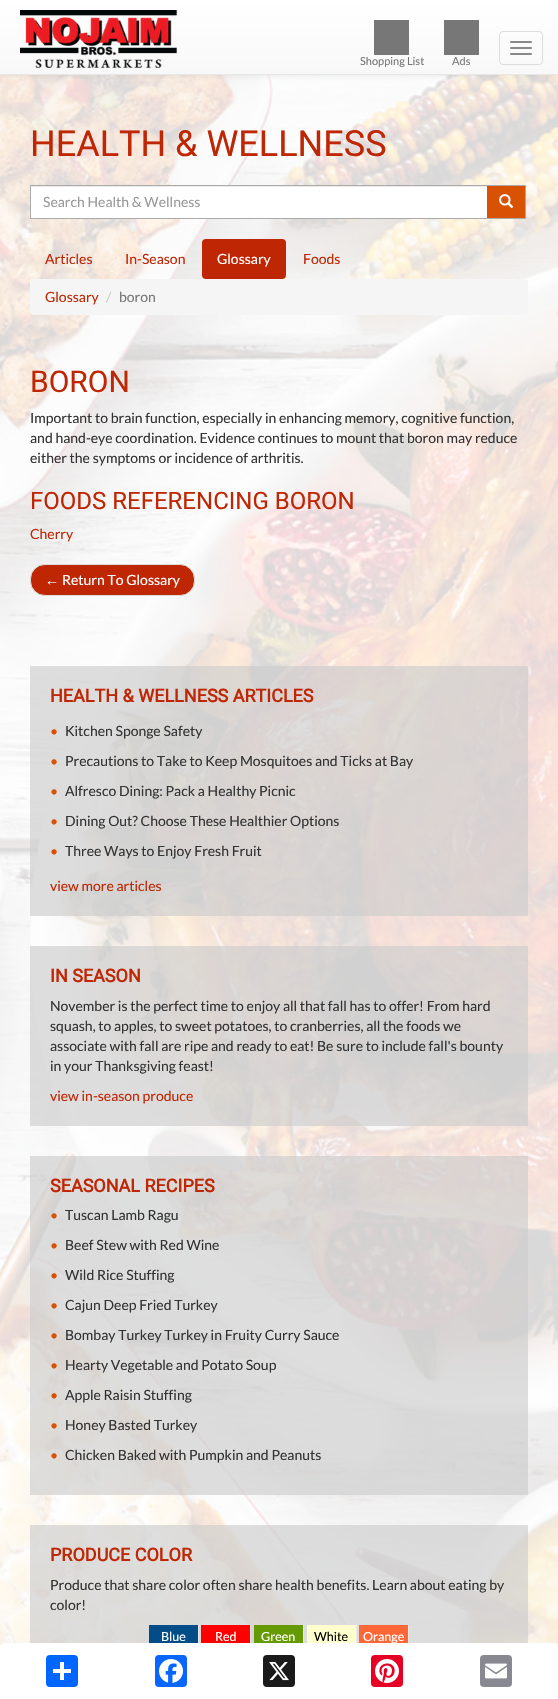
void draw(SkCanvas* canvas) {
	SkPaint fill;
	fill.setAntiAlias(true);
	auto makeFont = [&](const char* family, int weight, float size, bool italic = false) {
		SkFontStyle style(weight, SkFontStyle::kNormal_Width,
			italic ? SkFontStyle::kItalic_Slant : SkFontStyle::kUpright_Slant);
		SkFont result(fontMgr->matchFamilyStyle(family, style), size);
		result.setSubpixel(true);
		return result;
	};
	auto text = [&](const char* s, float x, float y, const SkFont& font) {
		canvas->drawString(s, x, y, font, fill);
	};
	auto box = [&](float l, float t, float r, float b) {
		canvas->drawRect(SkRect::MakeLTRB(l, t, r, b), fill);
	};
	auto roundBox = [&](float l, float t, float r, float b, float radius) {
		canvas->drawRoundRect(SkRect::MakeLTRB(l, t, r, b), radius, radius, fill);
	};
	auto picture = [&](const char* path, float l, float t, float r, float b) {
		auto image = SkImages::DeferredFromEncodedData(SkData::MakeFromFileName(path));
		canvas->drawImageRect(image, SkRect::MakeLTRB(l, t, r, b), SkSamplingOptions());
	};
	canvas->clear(0xFFFFFFFF);
	picture("image0.png", 0, 75, 558, 1647);
	fill.setColor(0x12000000);
	fill.setMaskFilter(SkMaskFilter::MakeBlur(kNormal_SkBlurStyle, 2.5f));
	canvas->drawRect(SkRect::MakeLTRB(0, 1, 558, 76), fill);
	fill.setMaskFilter(nullptr);
	{
		const SkColor colors[] = {0xFFFFFFFF, 0xFFF8F8F8};
		const float stops[] = {0, 1};
		const SkPoint ends[] = {{279, 0}, {279, 74}};
		fill.setShader(SkGradientShader::MakeLinear(ends, colors, stops, 2, SkTileMode::kClamp));
		fill.setAlpha(255);
	}
	box(0, 0, 558, 74);
	fill.setShader(nullptr);
	fill.setColor(0xFFE7E7E7);
	box(0, 74, 558, 75);
	picture("image1.png", 20, 10, 177, 68);
	fill.setColor(0xFF777777);
	box(374, 20, 409, 55);
	box(444, 20, 479, 55);
	fill.setStyle(SkPaint::kStroke_Style);
	fill.setStrokeWidth(1);
	fill.setColor(0xFFDDDDDD);
	canvas->drawRoundRect(SkRect::MakeLTRB(499.5f, 31.5f, 542.5f, 64.5f), 3.5f, 3.5f, fill);
	fill.setStyle(SkPaint::kFill_Style);
	fill.setColor(0xFF888888);
	roundBox(510, 41, 532, 43, 1);
	roundBox(510, 47, 532, 49, 1);
	roundBox(510, 53, 532, 55, 1);
	fill.setColor(0xFFFFFFFF);
	box(31, 187, 487, 218);
	fill.setColor(0xFFECECEC);
	box(31, 186, 489, 187);
	fill.setStyle(SkPaint::kStroke_Style);
	fill.setColor(0xFFAAAAAA);
	canvas->drawRect(SkRect::MakeLTRB(30.5f, 185.5f, 489.5f, 218.5f), fill);
	fill.setStyle(SkPaint::kFill_Style);
	fill.setColor(0xFFD95204);
	box(487, 186, 525, 218);
	fill.setColor(0xFFAAAAAA);
	box(487, 185, 526, 186);
	box(525, 185, 526, 219);
	box(487, 218, 526, 219);
	picture("image2.png", 499, 194, 514, 208);
	fill.setColor(0xFFBF2604);
	roundBox(202, 239, 286, 279, 4);
	fill.setColor(0xFFF5F5F5);
	roundBox(30, 279, 528, 315, 4);
	fill.setColor(0xFFBF2604);
	canvas->drawRoundRect(SkRect::MakeLTRB(30.5f, 564.5f, 194.5f, 595.5f), 14.5f, 14.5f, fill);
	fill.setStyle(SkPaint::kStroke_Style);
	fill.setColor(0xFFDDDDDD);
	canvas->drawRoundRect(SkRect::MakeLTRB(30.5f, 564.5f, 194.5f, 595.5f), 14.5f, 14.5f, fill);
	fill.setStyle(SkPaint::kFill_Style);
	fill.setColor(0xA6CCCCCC);
	box(30, 666, 528, 916);
	box(30, 946, 528, 1126);
	box(30, 1156, 528, 1495);
	box(30, 1525, 528, 1643);
	fill.setColor(0xFF024D87);
	box(149, 1625, 198, 1643);
	fill.setColor(0xFFEDEAE5);
	box(198, 1625, 199, 1643);
	fill.setColor(0xFFFF0000);
	box(201, 1625, 250, 1643);
	fill.setColor(0xFFEDEAE5);
	box(250, 1625, 251, 1643);
	fill.setColor(0xFF659A02);
	box(254, 1625, 303, 1643);
	fill.setColor(0xFFEDEAE5);
	box(303, 1625, 304, 1643);
	fill.setColor(0xFFFFFFCD);
	box(307, 1625, 356, 1643);
	fill.setColor(0xFFEDEAE5);
	box(356, 1625, 357, 1643);
	fill.setColor(0xFFFF6736);
	box(359, 1625, 408, 1643);
	fill.setColor(0xFFEDEAE5);
	box(408, 1625, 409, 1643);
	fill.setColor(0xFFFFFFFF);
	canvas->drawPath(SkPathBuilder().moveTo(4, 1643).lineTo(554, 1643).cubicTo(556, 1643, 558, 1645, 558, 1647).lineTo(558, 1699).lineTo(0, 1699).lineTo(0, 1647).cubicTo(0, 1645, 2, 1643, 4, 1643).close().detach(), fill);
	fill.setColor(0xFF0166FF);
	roundBox(46, 1655, 78, 1687, 4);
	fill.setColor(0xFFFFFFFF);
	box(60, 1662, 64, 1680);
	box(53, 1669, 71, 1673);
	fill.setColor(0xFF0866FF);
	roundBox(155, 1655, 187, 1687, 4);
	picture("image3.png", 159, 1659, 183, 1683);
	fill.setColor(0xFF1A1A1A);
	roundBox(263, 1655, 295, 1687, 4);
	picture("image4.png", 269, 1662, 289, 1681);
	fill.setColor(0xFFE60023);
	roundBox(371, 1655, 403, 1687, 4);
	picture("image5.png", 375, 1659, 399, 1683);
	fill.setColor(0xFF888990);
	roundBox(480, 1655, 512, 1687, 4);
	picture("image6.png", 485, 1663, 507, 1679);
	auto font1 = makeFont("Lato", 400, 11);
	fill.setColor(0xFF777777);
	text("Shopping List", 360, 65, font1);
	text("Ads", 452, 65, font1);
	auto font2 = makeFont("Roboto", 400, 36);
	fill.setColor(0xFFBF2604);
	text("HEALTH & WELLNESS", 30, 156, font2);
	auto font3 = makeFont("Lato", 400, 14);
	fill.setColor(0xFF999999);
	text("Search Health & Wellness", 43, 207, font3);
	fill.setColor(0xFFBF2604);
	text("Articles", 45, 264, font3);
	text("In-Season", 125, 264, font3);
	fill.setColor(0xFFFFFFFF);
	text("Glossary", 217, 264, font3);
	fill.setColor(0xFFBF2604);
	text("Foods", 303, 264, font3);
	text("Glossary", 45, 302, font3);
	fill.setColor(0xFFCCCCCC);
	text("/", 106, 302, font3);
	fill.setColor(0xFF777777);
	text("boron", 119, 302, font3);
	auto font4 = makeFont("Roboto", 400, 30);
	fill.setColor(0xFFBF2604);
	text("BORON", 30, 392, font4);
	fill.setColor(0xFF333333);
	text("Important to brain function, especially in enhancing memory, cognitive function,", 30, 423, font3);
	text("and hand-eye coordination. Evidence continues to mount that boron may reduce", 30, 443, font3);
	text("either the symptoms or incidence of arthritis.", 30, 463, font3);
	auto font5 = makeFont("Roboto", 400, 24);
	fill.setColor(0xFFBF2604);
	text("FOODS REFERENCING BORON", 30, 509, font5);
	text("Cherry", 30, 539, font3);
	auto font6 = makeFont("Liberation Sans", 400, 14);
	fill.setColor(0xFFFFFFFF);
	text("←", 45, 585, font6);
	text("Return To Glossary", 62, 585, font3);
	auto font7 = makeFont("Roboto", 700, 18);
	fill.setColor(0xFFBF2604);
	text("HEALTH & WELLNESS ARTICLES", 50, 702, font7);
	fill.setColor(0xFFD95204);
	text("•", 50, 736, font3);
	fill.setColor(0xFF333333);
	text("Kitchen Sponge Safety", 65, 736, font3);
	fill.setColor(0xFFD95204);
	text("•", 50, 766, font3);
	fill.setColor(0xFF333333);
	text("Precautions to Take to Keep Mosquitoes and Ticks at Bay", 65, 766, font3);
	fill.setColor(0xFFD95204);
	text("•", 50, 796, font3);
	fill.setColor(0xFF333333);
	text("Alfresco Dining: Pack a Healthy Picnic", 65, 796, font3);
	fill.setColor(0xFFD95204);
	text("•", 50, 826, font3);
	fill.setColor(0xFF333333);
	text("Dining Out? Choose These Healthier Options", 65, 826, font3);
	fill.setColor(0xFFD95204);
	text("•", 50, 856, font3);
	fill.setColor(0xFF333333);
	text("Three Ways to Enjoy Fresh Fruit", 65, 856, font3);
	fill.setColor(0xFFBF2604);
	text("view more articles", 50, 891, font3);
	text("IN SEASON", 50, 982, font7);
	fill.setColor(0xFF333333);
	text("November is the perfect time to enjoy all that fall has to offer! From hard", 50, 1011, font3);
	text("squash, to apples, to sweet potatoes, to cranberries, all the foods we", 50, 1031, font3);
	text("associate with fall are ripe and ready to eat! Be sure to include fall's bounty", 50, 1051, font3);
	text("in your Thanksgiving feast!", 50, 1071, font3);
	fill.setColor(0xFFBF2604);
	text("view in-season produce", 50, 1101, font3);
	text("SEASONAL RECIPES", 50, 1192, font7);
	fill.setColor(0xFFD95204);
	text("•", 50, 1220, font3);
	fill.setColor(0xFF333333);
	text("Tuscan Lamb Ragu", 65, 1220, font3);
	fill.setColor(0xFFD95204);
	text("•", 50, 1250, font3);
	fill.setColor(0xFF333333);
	text("Beef Stew with Red Wine", 65, 1250, font3);
	fill.setColor(0xFFD95204);
	text("•", 50, 1280, font3);
	fill.setColor(0xFF333333);
	text("Wild Rice Stuffing", 65, 1280, font3);
	fill.setColor(0xFFD95204);
	text("•", 50, 1310, font3);
	fill.setColor(0xFF333333);
	text("Cajun Deep Fried Turkey", 65, 1310, font3);
	fill.setColor(0xFFD95204);
	text("•", 50, 1340, font3);
	fill.setColor(0xFF333333);
	text("Bombay Turkey Turkey in Fruity Curry Sauce", 65, 1340, font3);
	fill.setColor(0xFFD95204);
	text("•", 50, 1370, font3);
	fill.setColor(0xFF333333);
	text("Hearty Vegetable and Potato Soup", 65, 1370, font3);
	fill.setColor(0xFFD95204);
	text("•", 50, 1400, font3);
	fill.setColor(0xFF333333);
	text("Apple Raisin Stuffing", 65, 1400, font3);
	fill.setColor(0xFFD95204);
	text("•", 50, 1430, font3);
	fill.setColor(0xFF333333);
	text("Honey Basted Turkey", 65, 1430, font3);
	fill.setColor(0xFFD95204);
	text("•", 50, 1460, font3);
	fill.setColor(0xFF333333);
	text("Chicken Baked with Pumpkin and Peanuts", 65, 1460, font3);
	fill.setColor(0xFFBF2604);
	text("PRODUCE COLOR", 50, 1561, font7);
	fill.setColor(0xFF333333);
	text("Produce that share color often share health benefits. Learn about eating by", 50, 1590, font3);
	text("color!", 50, 1610, font3);
	auto font8 = makeFont("Lato", 400, 12.5f);
	fill.setColor(0xFFFFFFFF);
	text("Blue", 161, 1641, font8);
	text("Red", 215, 1641, font8);
	text("Green", 261, 1641, font8);
	fill.setColor(0xFF000000);
	text("White", 314, 1641, font8);
	fill.setColor(0xFFFFFFFF);
	text("Orange", 363, 1641, font8);
}
